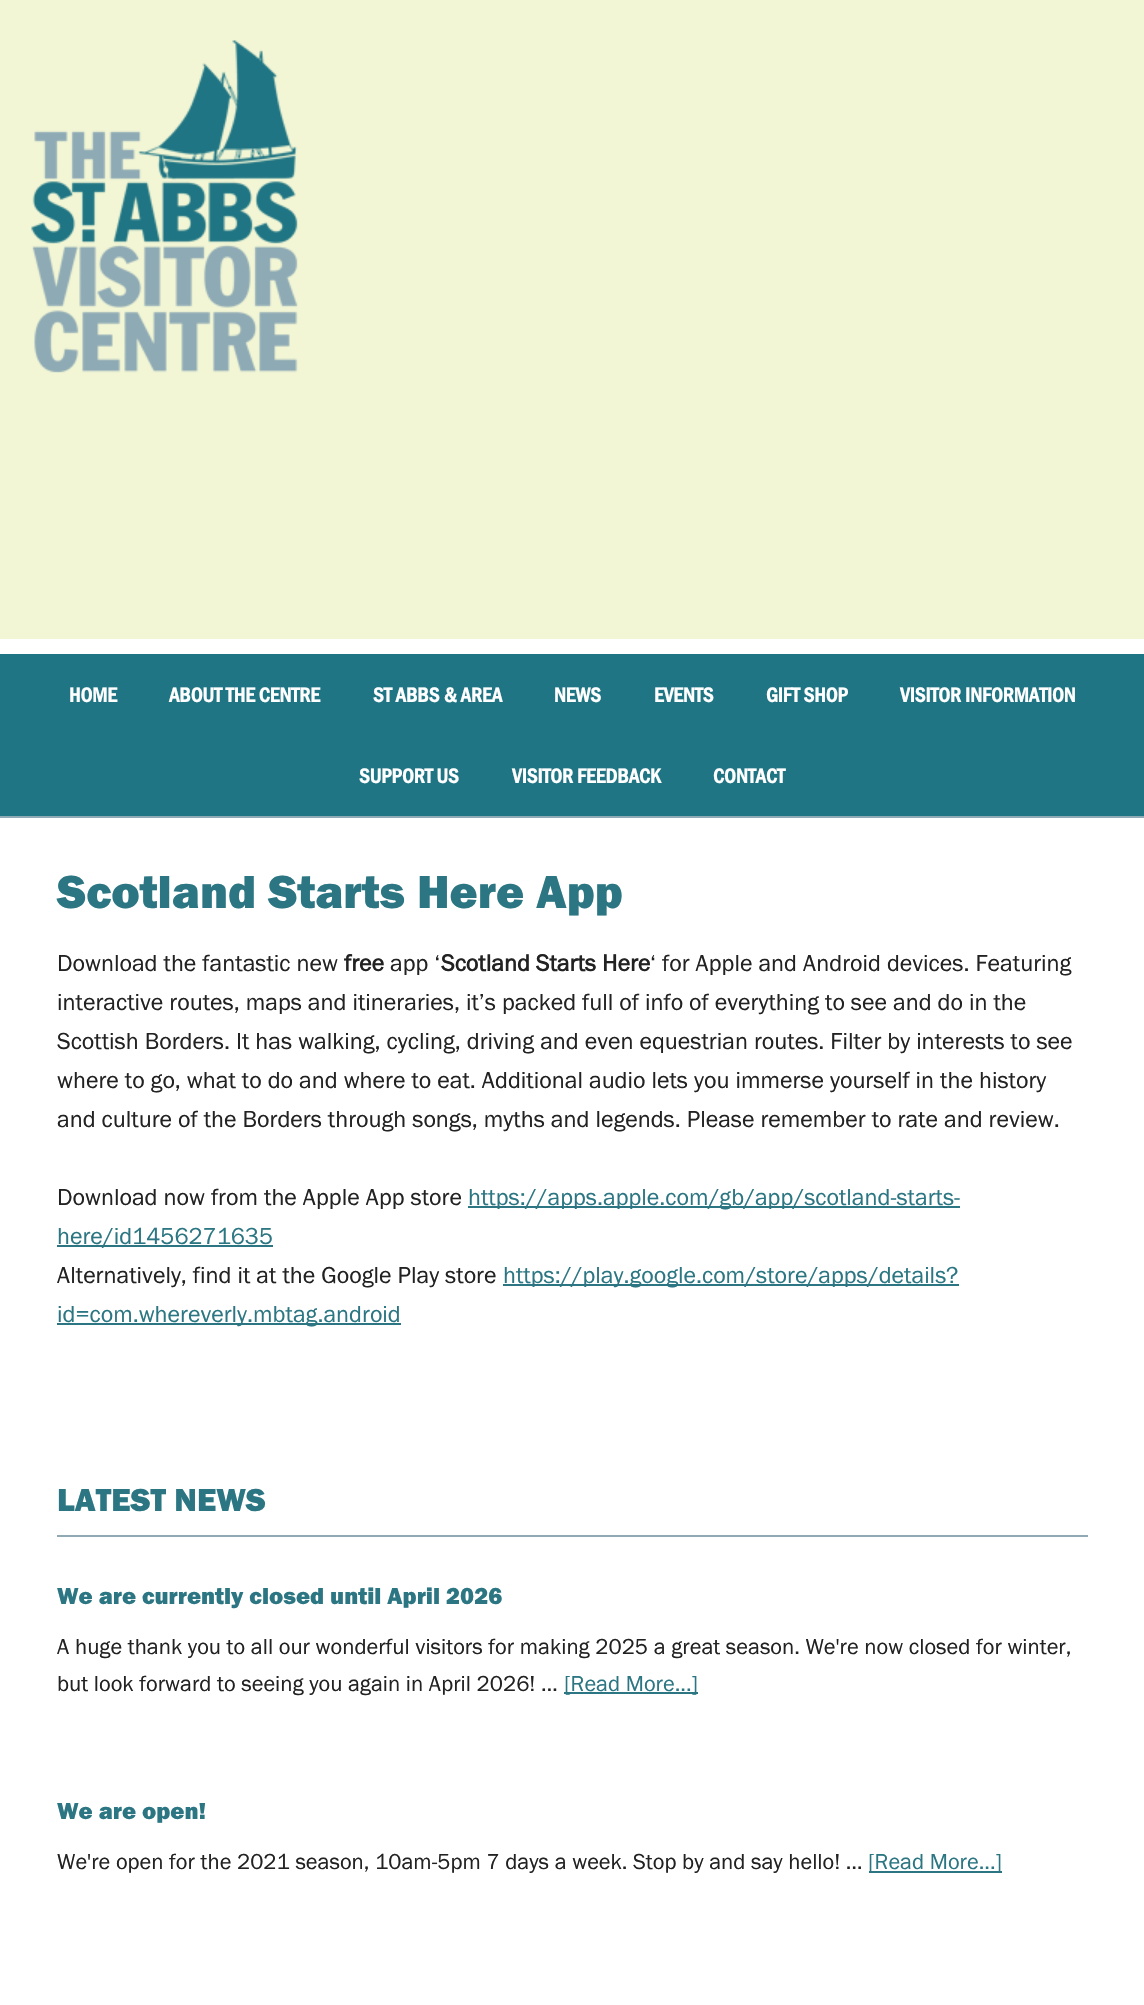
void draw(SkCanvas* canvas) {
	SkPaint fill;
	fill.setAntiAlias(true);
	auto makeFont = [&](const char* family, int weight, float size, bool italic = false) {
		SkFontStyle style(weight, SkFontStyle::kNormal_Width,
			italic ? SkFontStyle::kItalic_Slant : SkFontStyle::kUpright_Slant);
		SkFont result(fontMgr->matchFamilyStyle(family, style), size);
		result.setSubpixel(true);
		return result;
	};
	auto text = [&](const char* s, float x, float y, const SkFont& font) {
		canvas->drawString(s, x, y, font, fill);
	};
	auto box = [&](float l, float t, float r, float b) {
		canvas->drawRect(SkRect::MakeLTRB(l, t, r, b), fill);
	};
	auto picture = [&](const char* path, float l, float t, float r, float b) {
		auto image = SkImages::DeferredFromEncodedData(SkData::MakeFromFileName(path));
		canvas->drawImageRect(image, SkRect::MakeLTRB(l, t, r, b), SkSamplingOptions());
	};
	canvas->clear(0xFFFFFFFF);
	fill.setColor(0xFFF2F6D5);
	box(0, 0, 1144, 639);
	picture("image0.png", 31, 40, 298, 373);
	fill.setColor(0xFF207584);
	box(0, 654, 1144, 816);
	fill.setColor(0xFF8FAAB5);
	box(0, 816, 1144, 818);
	fill.setColor(0xFF2B7682);
	box(468, 1206, 960, 1208);
	box(57, 1245, 273, 1247);
	box(503, 1284, 959, 1286);
	box(57, 1323, 401, 1325);
	fill.setColor(0xFF8FAAB5);
	box(57, 1535, 1088, 1537);
	fill.setColor(0xFF2B7682);
	box(564, 1692, 698, 1694);
	box(869, 1871, 1002, 1873);
	auto font1 = makeFont("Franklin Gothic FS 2", 700, 21);
	fill.setColor(0xFFFFFFFF);
	text("HOME", 69, 702, font1);
	text("ABOUT THE CENTRE", 169, 702, font1);
	text("ST ABBS & AREA", 373, 702, font1);
	text("NEWS", 554, 702, font1);
	text("EVENTS", 654, 702, font1);
	text("GIFT SHOP", 766, 702, font1);
	text("VISITOR INFORMATION", 900, 702, font1);
	text("SUPPORT US", 359, 783, font1);
	text("VISITOR FEEDBACK", 512, 783, font1);
	text("CONTACT", 713, 783, font1);
	auto font2 = makeFont("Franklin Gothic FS", 800, 48);
	fill.setColor(0xFF2B7682);
	text("Scotland Starts Here App", 57, 908, font2);
	auto font3 = makeFont("Franklin Gothic FS", 400, 24);
	fill.setColor(0xFF222222);
	text("Download the fantastic new", 57, 971, font3);
	auto font4 = makeFont("Franklin Gothic FS", 700, 24);
	text("free", 344, 971, font4);
	text("app ‘", 390, 971, font3);
	text("Scotland Starts Here", 441, 971, font4);
	text("‘ for Apple and Android devices. Featuring", 650, 971, font3);
	text("interactive routes, maps and itineraries, it’s packed full of info of everything to see and do in the", 57, 1010, font3);
	text("Scottish Borders. It has walking, cycling, driving and even equestrian routes. Filter by interests to see", 57, 1049, font3);
	text("where to go, what to do and where to eat. Additional audio lets you immerse yourself in the history", 57, 1088, font3);
	text("and culture of the Borders through songs, myths and legends. Please remember to rate and review.", 57, 1127, font3);
	text("Download now from the Apple App store", 57, 1205, font3);
	fill.setColor(0xFF2B7682);
	text("https://apps.apple.com/gb/app/scotland-starts-", 468, 1205, font3);
	text("here/id1456271635", 57, 1244, font3);
	fill.setColor(0xFF222222);
	text("Alternatively, find it at the Google Play store", 57, 1283, font3);
	fill.setColor(0xFF2B7682);
	text("https://play.google.com/store/apps/details?", 503, 1283, font3);
	text("id=com.whereverly.mbtag.android", 57, 1322, font3);
	auto font5 = makeFont("Franklin Gothic FS", 800, 33);
	text("LATEST NEWS", 57, 1511, font5);
	auto font6 = makeFont("Franklin Gothic FS", 800, 24);
	text("We are currently closed until April 2026", 57, 1604, font6);
	auto font7 = makeFont("Franklin Gothic FS", 400, 22.5f);
	fill.setColor(0xFF222222);
	text("A huge thank you to all our wonderful visitors for making 2025 a great season. We're now closed for winter,", 57, 1654, font7);
	text("but look forward to seeing you again in April 2026! …", 57, 1691, font7);
	fill.setColor(0xFF2B7682);
	text("[Read More...]", 564, 1691, font7);
	text("We are open!", 57, 1819, font6);
	fill.setColor(0xFF222222);
	text("We're open for the 2021 season, 10am-5pm 7 days a week. Stop by and say hello! …", 57, 1869, font7);
	fill.setColor(0xFF2B7682);
	text("[Read More...]", 868, 1869, font7);
}
